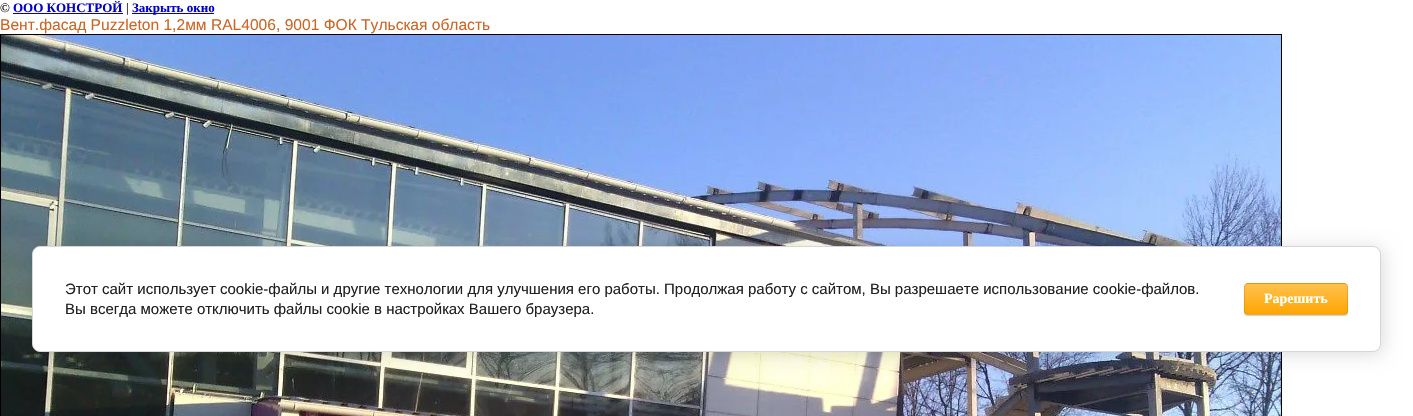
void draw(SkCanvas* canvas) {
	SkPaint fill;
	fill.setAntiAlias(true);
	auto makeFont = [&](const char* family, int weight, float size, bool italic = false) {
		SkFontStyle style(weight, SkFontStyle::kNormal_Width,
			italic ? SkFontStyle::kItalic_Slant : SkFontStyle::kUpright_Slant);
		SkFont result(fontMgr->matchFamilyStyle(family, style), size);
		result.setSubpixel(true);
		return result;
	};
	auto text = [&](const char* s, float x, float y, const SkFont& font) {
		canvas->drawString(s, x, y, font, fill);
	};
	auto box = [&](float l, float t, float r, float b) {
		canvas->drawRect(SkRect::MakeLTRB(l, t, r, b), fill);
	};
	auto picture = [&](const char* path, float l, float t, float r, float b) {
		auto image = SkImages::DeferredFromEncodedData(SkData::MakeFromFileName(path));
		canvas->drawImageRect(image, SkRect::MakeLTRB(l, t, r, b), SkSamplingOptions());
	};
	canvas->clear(0xFFFFFFFF);
	fill.setColor(0xFF0000CC);
	box(13, 13, 123, 14);
	box(132, 13, 214, 14);
	fill.setStyle(SkPaint::kStroke_Style);
	fill.setStrokeWidth(1);
	fill.setColor(0xFF000000);
	canvas->drawRect(SkRect::MakeLTRB(0.5f, 34.5f, 1281.5f, 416.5f), fill);
	picture("image0.png", 1, 35, 1281, 416);
	fill.setStyle(SkPaint::kFill_Style);
	fill.setColor(0x24000000);
	fill.setMaskFilter(SkMaskFilter::MakeBlur(kNormal_SkBlurStyle, 9));
	canvas->drawRoundRect(SkRect::MakeLTRB(34, 248, 1383, 354), 8, 8, fill);
	fill.setMaskFilter(nullptr);
	fill.setColor(0xFFFFFFFF);
	canvas->drawRoundRect(SkRect::MakeLTRB(32.5f, 246.5f, 1380.5f, 351.5f), 7.5f, 7.5f, fill);
	fill.setStyle(SkPaint::kStroke_Style);
	fill.setColor(0xFFD6D6D6);
	canvas->drawRoundRect(SkRect::MakeLTRB(32.5f, 246.5f, 1380.5f, 351.5f), 7.5f, 7.5f, fill);
	fill.setStyle(SkPaint::kFill_Style);
	fill.setColor(0x33000000);
	fill.setMaskFilter(SkMaskFilter::MakeBlur(kNormal_SkBlurStyle, 0.5f));
	canvas->drawRoundRect(SkRect::MakeLTRB(1244, 284, 1348, 316), 4, 4, fill);
	fill.setMaskFilter(nullptr);
	canvas->save();
	canvas->clipPath(SkPathBuilder().moveTo(1248, 283).lineTo(1344, 283).cubicTo(1346, 283, 1348, 285, 1348, 287).lineTo(1348, 311).cubicTo(1348, 313, 1346, 315, 1344, 315).lineTo(1248, 315).cubicTo(1246, 315, 1244, 313, 1244, 311).lineTo(1244, 287).cubicTo(1244, 285, 1246, 283, 1248, 283).close().detach(), true);
	{
		const SkColor colors[] = {0xFFFFC14E, 0xFFFFA601};
		const float stops[] = {0, 1};
		const SkPoint ends[] = {{1296, 254}, {1296, 284}};
		fill.setShader(SkGradientShader::MakeLinear(ends, colors, stops, 2, SkTileMode::kClamp));
		fill.setAlpha(255);
	}
	box(1244, 283, 1348, 284);
	{
		const SkColor colors[] = {0xFFFFC14E, 0xFFFFA601};
		const float stops[] = {0, 1};
		const SkPoint ends[] = {{1296, 284}, {1296, 314}};
		fill.setShader(SkGradientShader::MakeLinear(ends, colors, stops, 2, SkTileMode::kClamp));
		fill.setAlpha(255);
	}
	box(1244, 284, 1348, 314);
	{
		const SkColor colors[] = {0xFFFFC14E, 0xFFFFA601};
		const float stops[] = {0, 1};
		const SkPoint ends[] = {{1296, 314}, {1296, 344}};
		fill.setShader(SkGradientShader::MakeLinear(ends, colors, stops, 2, SkTileMode::kClamp));
		fill.setAlpha(255);
	}
	box(1244, 314, 1348, 315);
	canvas->restore();
	fill.setStyle(SkPaint::kStroke_Style);
	fill.setShader(nullptr);
	fill.setColor(0x1A000000);
	canvas->drawRoundRect(SkRect::MakeLTRB(1244.5f, 283.5f, 1347.5f, 314.5f), 3.5f, 3.5f, fill);
	auto font1 = makeFont("Liberation Serif", 400, 13);
	fill.setStyle(SkPaint::kFill_Style);
	fill.setColor(0xFF000000);
	text("©", 0, 12, font1);
	auto font2 = makeFont("Liberation Serif", 700, 13);
	fill.setColor(0xFF0000CC);
	text("ООО КОНСТРОЙ", 13, 12, font2);
	fill.setColor(0xFF000000);
	text("|", 126, 12, font1);
	fill.setColor(0xFF0000CC);
	text("Закрыть окно", 132, 12, font2);
	auto font3 = makeFont("Liberation Sans", 400, 15.6f);
	fill.setColor(0xFFCB6627);
	text("Вент.фасад Puzzleton 1,2мм RAL4006, 9001 ФОК Тульская область", 0, 30, font3);
	auto font4 = makeFont("Liberation Sans", 400, 15);
	fill.setColor(0xFF212121);
	text("Этот сайт использует cookie-файлы и другие технологии для улучшения его работы. Продолжая работу с сайтом, Вы разрешаете использование cookie-файлов.", 65, 294, font4);
	text("Вы всегда можете отключить файлы cookie в настройках Вашего браузера.", 65, 314, font4);
	auto font5 = makeFont("Liberation Serif", 700, 14);
	fill.setColor(0xFFFFFFFF);
	text("Рарешить", 1264, 303, font5);
}
